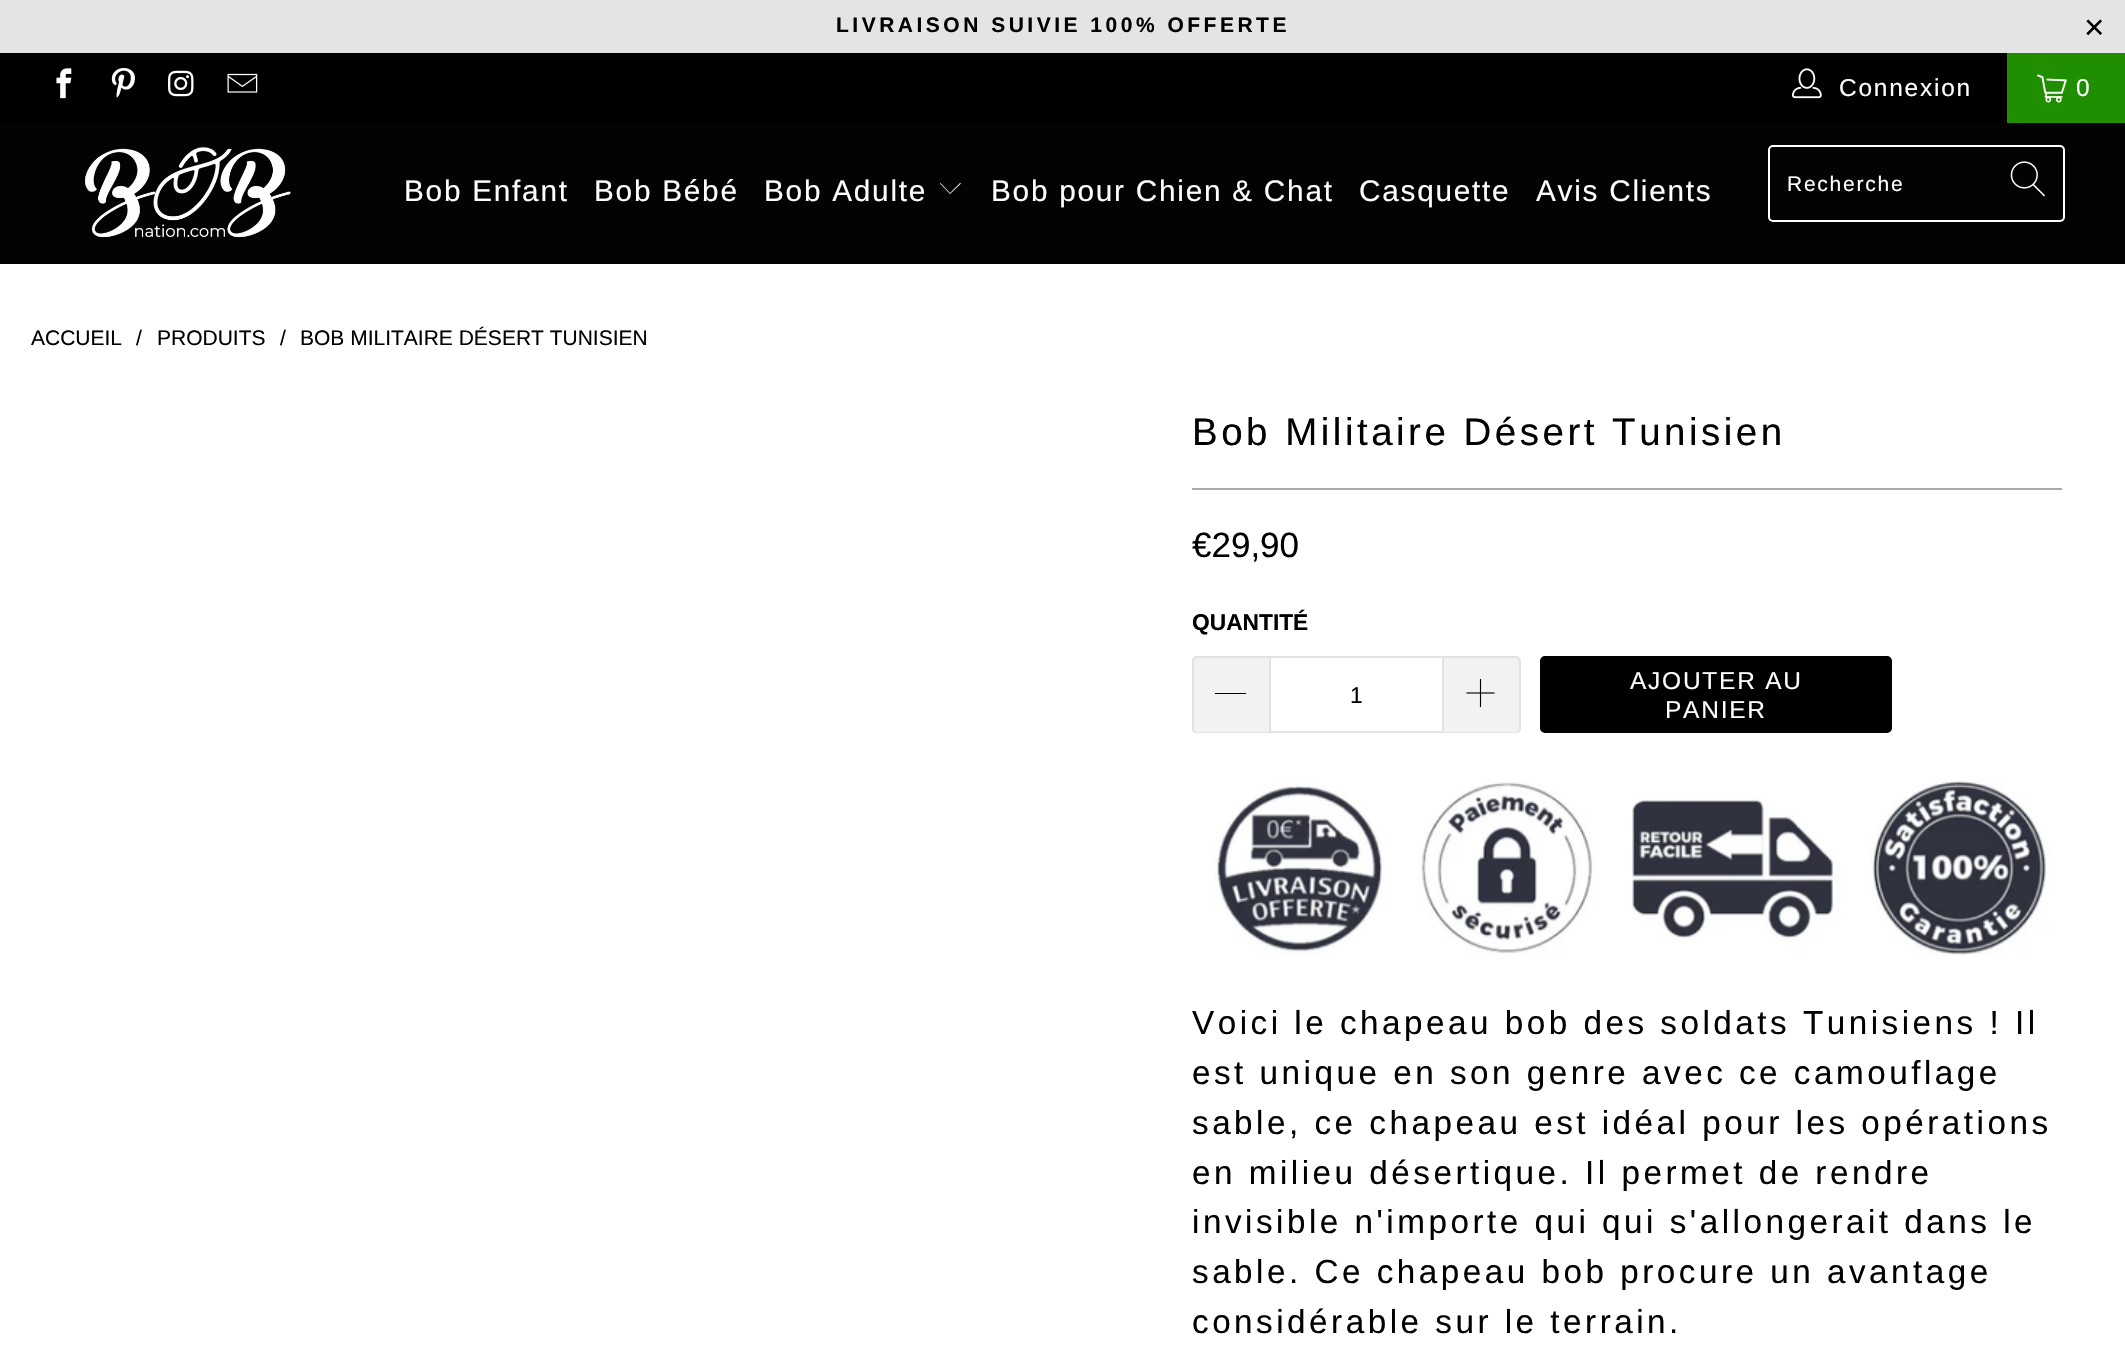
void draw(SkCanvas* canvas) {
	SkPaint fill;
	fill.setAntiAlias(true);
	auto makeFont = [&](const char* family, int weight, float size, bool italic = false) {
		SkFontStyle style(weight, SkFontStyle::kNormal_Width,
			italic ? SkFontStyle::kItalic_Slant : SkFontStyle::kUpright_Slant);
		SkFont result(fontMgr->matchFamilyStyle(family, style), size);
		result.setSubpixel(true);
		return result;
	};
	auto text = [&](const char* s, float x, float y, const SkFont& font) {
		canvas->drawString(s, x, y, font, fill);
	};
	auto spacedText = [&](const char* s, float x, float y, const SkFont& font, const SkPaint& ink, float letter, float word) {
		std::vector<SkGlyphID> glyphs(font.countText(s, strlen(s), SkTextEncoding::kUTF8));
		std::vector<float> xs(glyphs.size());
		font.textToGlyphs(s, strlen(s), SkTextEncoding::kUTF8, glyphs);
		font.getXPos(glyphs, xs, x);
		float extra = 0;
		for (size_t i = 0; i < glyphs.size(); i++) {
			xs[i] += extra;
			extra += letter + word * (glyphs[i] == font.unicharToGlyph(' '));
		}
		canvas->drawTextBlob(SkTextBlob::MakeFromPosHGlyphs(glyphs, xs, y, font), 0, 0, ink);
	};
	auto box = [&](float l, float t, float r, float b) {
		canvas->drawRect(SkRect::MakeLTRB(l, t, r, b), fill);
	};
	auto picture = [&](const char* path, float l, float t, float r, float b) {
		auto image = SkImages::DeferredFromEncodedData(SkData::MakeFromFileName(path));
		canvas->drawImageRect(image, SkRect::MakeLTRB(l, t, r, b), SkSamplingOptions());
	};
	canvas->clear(0xFFFFFFFF);
	fill.setColor(0xFFE4E4E4);
	box(0, 0, 2125, 53);
	fill.setColor(0xFF000000);
	box(0, 53, 2007, 123);
	picture("image0.png", 56, 68, 72, 99);
	picture("image1.png", 111, 68, 135, 98);
	picture("image2.png", 168, 70, 194, 97);
	picture("image3.png", 227, 73, 258, 93);
	picture("image4.png", 1792, 68, 1822, 99);
	fill.setColor(0xFF1F8E00);
	box(2007, 53, 2125, 123);
	picture("image5.png", 2037, 74, 2067, 103);
	fill.setColor(0xFF030303);
	box(0, 123, 2125, 264);
	picture("image6.png", 85, 147, 291, 238);
	fill.setColor(0xFFFFFFFF);
	canvas->drawPath(SkPathBuilder().moveTo(950, 194).lineTo(940, 183.5f).lineTo(940.5f, 183).lineTo(950, 193).lineTo(960, 183).lineTo(961, 183.5f).close().detach(), fill);
	fill.setStyle(SkPaint::kStroke_Style);
	fill.setStrokeWidth(2);
	canvas->drawRoundRect(SkRect::MakeLTRB(1769, 146, 2064, 221), 4, 4, fill);
	picture("image7.png", 2010, 161, 2045, 197);
	fill.setStyle(SkPaint::kFill_Style);
	fill.setColor(0xFFAAAAAA);
	box(1192, 488, 2062, 490);
	fill.setColor(0xFFF2F2F2);
	canvas->drawPath(SkPathBuilder().moveTo(1197, 656).lineTo(1269, 656).lineTo(1269, 733).lineTo(1197, 733).cubicTo(1194, 733, 1192, 731, 1192, 728).lineTo(1192, 661).cubicTo(1192, 658, 1194, 656, 1197, 656).close().detach(), fill);
	fill.setColor(0xFFE2E2E2);
	canvas->drawPath(SkPathBuilder(SkPathFillType::kEvenOdd).moveTo(1197, 656).lineTo(1269, 656).lineTo(1269, 733).lineTo(1197, 733).cubicTo(1194, 733, 1192, 731, 1192, 728).lineTo(1192, 662).cubicTo(1192, 659, 1194, 656, 1197, 656).close().moveTo(1197, 658).lineTo(1269, 658).lineTo(1269, 732).lineTo(1197, 732).cubicTo(1195, 732, 1194, 730, 1194, 728).lineTo(1194, 662).cubicTo(1194, 660, 1195, 658, 1197, 658).close().detach(), fill);
	fill.setColor(0xFF000000);
	box(1215, 693, 1246, 694);
	fill.setStyle(SkPaint::kStroke_Style);
	fill.setColor(0xFFE2E2E2);
	canvas->drawRect(SkRect::MakeLTRB(1270, 657, 1443, 732), fill);
	fill.setStyle(SkPaint::kFill_Style);
	fill.setColor(0xFFF2F2F2);
	canvas->drawPath(SkPathBuilder().moveTo(1444, 656).lineTo(1516, 656).cubicTo(1519, 656, 1521, 658, 1521, 661).lineTo(1521, 728).cubicTo(1521, 731, 1519, 733, 1516, 733).lineTo(1444, 733).close().detach(), fill);
	fill.setColor(0xFFE2E2E2);
	canvas->drawPath(SkPathBuilder(SkPathFillType::kEvenOdd).moveTo(1444, 656).lineTo(1516, 656).cubicTo(1518, 656, 1521, 659, 1521, 662).lineTo(1521, 728).cubicTo(1521, 731, 1518, 733, 1516, 733).lineTo(1444, 733).close().moveTo(1444, 658).lineTo(1516, 658).cubicTo(1517, 658, 1519, 660, 1519, 662).lineTo(1519, 728).cubicTo(1519, 730, 1517, 732, 1516, 732).lineTo(1444, 732).close().detach(), fill);
	picture("image8.png", 1466, 679, 1495, 707);
	fill.setColor(0xFF000000);
	canvas->drawRoundRect(SkRect::MakeLTRB(1541, 657, 1891, 732), 4, 4, fill);
	fill.setStyle(SkPaint::kStroke_Style);
	canvas->drawRoundRect(SkRect::MakeLTRB(1541, 657, 1891, 732), 4, 4, fill);
	picture("image9.png", 1192, 768, 2062, 971);
	auto font1 = makeFont("Arimo", 700, 21);
	fill.setStyle(SkPaint::kFill_Style);
	spacedText("LIVRAISON SUIVIE 100% OFFERTE", 836, 32, font1, fill, 3.5f, 0);
	auto font2 = makeFont("Liberation Sans", 400, 35);
	spacedText("×", 2084, 39, font2, fill, 3.5f, 0);
	auto font3 = makeFont("Arimo", 400, 24.5f);
	fill.setColor(0xFFFFFFFF);
	spacedText("Connexion", 1839, 96, font3, fill, 1.75f, 0);
	spacedText("0", 2076, 96, font3, fill, 1.75f, 0);
	auto font4 = makeFont("Arimo", 400, 29.75f);
	spacedText("Bob Enfant", 404, 201, font4, fill, 1.75f, 0);
	spacedText("Bob Bébé", 594, 201, font4, fill, 1.75f, 0);
	spacedText("Bob Adulte", 764, 201, font4, fill, 1.75f, 0);
	spacedText("Bob pour Chien & Chat", 991, 201, font4, fill, 1.75f, 0);
	spacedText("Casquette", 1359, 201, font4, fill, 1.75f, 0);
	spacedText("Avis Clients", 1536, 201, font4, fill, 1.75f, 0);
	auto font5 = makeFont("Arimo", 400, 21);
	spacedText("Recherche", 1787, 191, font5, fill, 1.75f, 0);
	fill.setColor(0xFF000000);
	text("ACCUEIL", 31, 345, font5);
	text("/", 136, 345, font5);
	text("PRODUITS", 157, 345, font5);
	text("/", 280, 345, font5);
	text("BOB MILITAIRE DÉSERT TUNISIEN", 300, 345, font5);
	auto font6 = makeFont("Arimo", 400, 38.5f);
	spacedText("Bob Militaire Désert Tunisien", 1192, 445, font6, fill, 3.5f, 0);
	auto font7 = makeFont("Arimo", 400, 35);
	text("€29,90", 1192, 557, font7);
	auto font8 = makeFont("Arimo", 700, 22.75f);
	text("QUANTITÉ", 1192, 630, font8);
	auto font9 = makeFont("Liberation Sans", 400, 22.75f);
	text("1", 1350, 703, font9);
	fill.setColor(0xFFFFFFFF);
	spacedText("AJOUTER AU", 1630, 689, font3, fill, 1.75f, 0);
	spacedText("PANIER", 1665, 718, font3, fill, 1.75f, 0);
	auto font10 = makeFont("Arimo", 400, 33.25f);
	fill.setColor(0xFF000000);
	spacedText("Voici le chapeau bob des soldats Tunisiens ! Il", 1192, 1034, font10, fill, 3.5f, 0);
	spacedText("est unique en son genre avec ce camouflage", 1192, 1084, font10, fill, 3.5f, 0);
	spacedText("sable, ce chapeau est idéal pour les opérations", 1192, 1134, font10, fill, 3.5f, 0);
	spacedText("en milieu désertique. Il permet de rendre", 1192, 1184, font10, fill, 3.5f, 0);
	spacedText("invisible n'importe qui qui s'allongerait dans le", 1192, 1233, font10, fill, 3.5f, 0);
	spacedText("sable. Ce chapeau bob procure un avantage", 1192, 1283, font10, fill, 3.5f, 0);
	spacedText("considérable sur le terrain.", 1192, 1333, font10, fill, 3.5f, 0);
}
